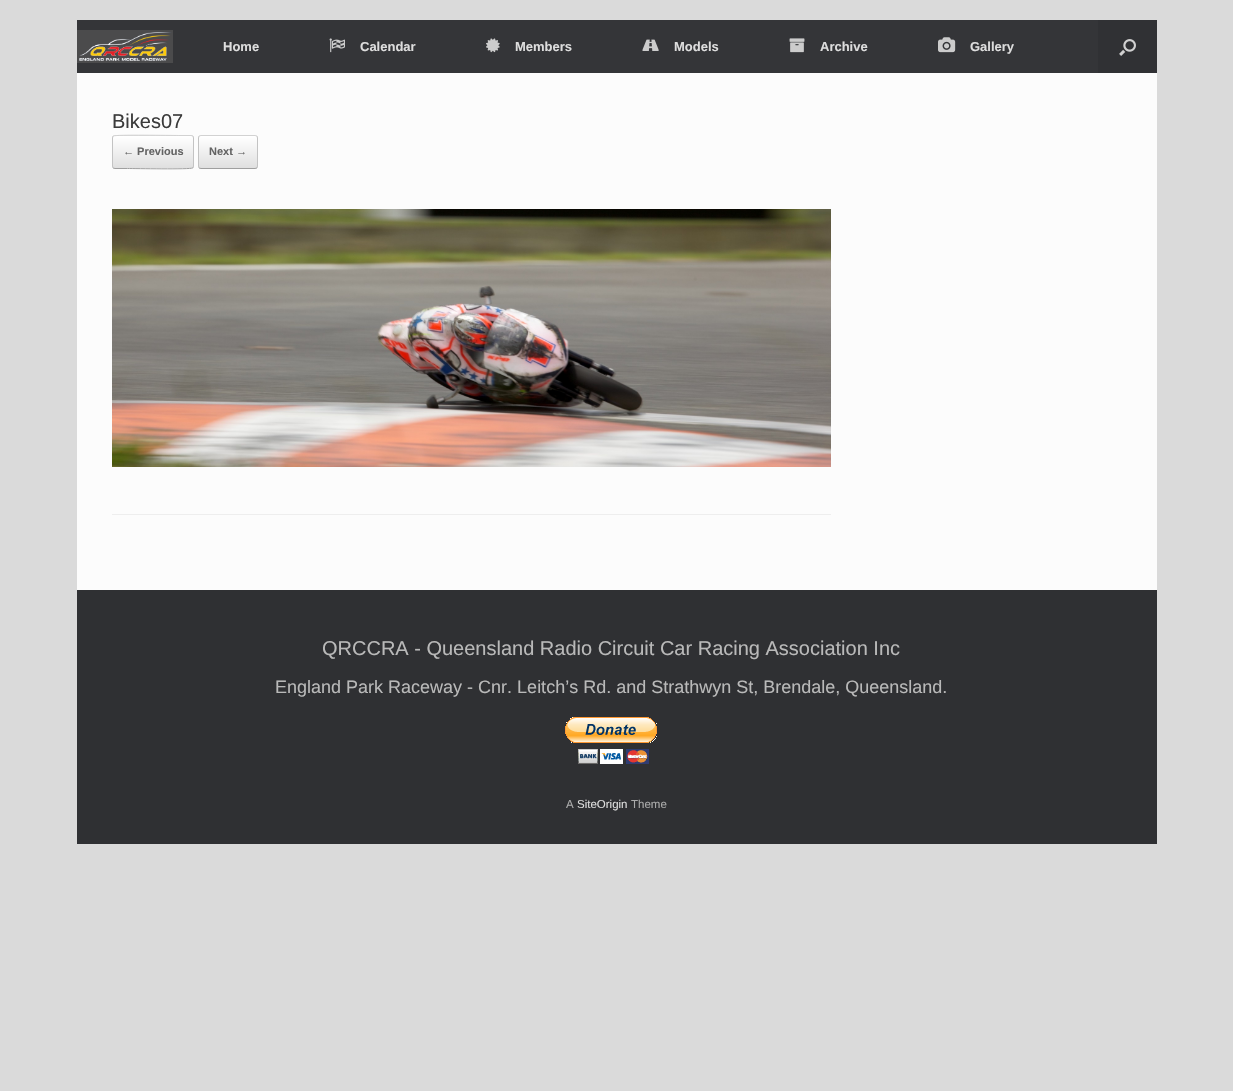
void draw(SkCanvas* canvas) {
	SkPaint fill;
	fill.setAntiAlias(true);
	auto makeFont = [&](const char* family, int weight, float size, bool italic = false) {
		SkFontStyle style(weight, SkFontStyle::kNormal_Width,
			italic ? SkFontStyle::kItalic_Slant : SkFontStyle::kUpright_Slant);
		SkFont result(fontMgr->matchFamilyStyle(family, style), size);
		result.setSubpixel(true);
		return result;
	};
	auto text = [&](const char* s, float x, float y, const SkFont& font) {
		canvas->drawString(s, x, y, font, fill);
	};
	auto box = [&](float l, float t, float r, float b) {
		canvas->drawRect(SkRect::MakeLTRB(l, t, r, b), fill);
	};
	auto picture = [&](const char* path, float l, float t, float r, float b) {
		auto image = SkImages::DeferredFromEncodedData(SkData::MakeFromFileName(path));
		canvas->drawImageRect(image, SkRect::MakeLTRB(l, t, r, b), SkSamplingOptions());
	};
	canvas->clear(0xFFDADADA);
	fill.setColor(0xFF343538);
	box(77, 20, 1098, 73);
	picture("image0.png", 77, 30, 173, 63);
	picture("image1.png", 329, 38, 345, 53);
	picture("image2.png", 486, 38, 500, 53);
	picture("image3.png", 642, 39, 659, 51);
	picture("image4.png", 789, 38, 805, 53);
	picture("image5.png", 938, 37, 956, 53);
	fill.setColor(0xFF303134);
	box(1098, 20, 1157, 73);
	picture("image6.png", 1119, 39, 1136, 56);
	fill.setColor(0xFFFCFCFC);
	box(77, 73, 1157, 590);
	fill.setColor(0xFFEEEEEE);
	box(112, 514, 831, 515);
	canvas->save();
	canvas->clipPath(SkPathBuilder().moveTo(115, 135).lineTo(191, 135).cubicTo(192.5f, 135, 194, 136.5f, 194, 138).lineTo(194, 166).cubicTo(194, 167.5f, 192.5f, 169, 191, 169).lineTo(115, 169).cubicTo(113.5f, 169, 112, 167.5f, 112, 166).lineTo(112, 138).cubicTo(112, 136.5f, 113.5f, 135, 115, 135).close().detach(), true);
	{
		const SkColor colors[] = {0xFFDFDFDF, 0xFFFFFFFF};
		const float stops[] = {0, 1};
		const SkPoint ends[] = {{113, 136}, {113, 104}};
		fill.setShader(SkGradientShader::MakeLinear(ends, colors, stops, 2, SkTileMode::kClamp));
		fill.setAlpha(255);
	}
	box(112, 135, 194, 136);
	{
		const SkColor colors[] = {0xFFDFDFDF, 0xFFFFFFFF};
		const float stops[] = {0, 1};
		const SkPoint ends[] = {{113, 168}, {113, 136}};
		fill.setShader(SkGradientShader::MakeLinear(ends, colors, stops, 2, SkTileMode::kClamp));
		fill.setAlpha(255);
	}
	box(112, 136, 194, 168);
	{
		const SkColor colors[] = {0xFFDFDFDF, 0xFFFFFFFF};
		const float stops[] = {0, 1};
		const SkPoint ends[] = {{113, 200}, {113, 168}};
		fill.setShader(SkGradientShader::MakeLinear(ends, colors, stops, 2, SkTileMode::kClamp));
		fill.setAlpha(255);
	}
	box(112, 168, 194, 169);
	canvas->restore();
	fill.setStyle(SkPaint::kStroke_Style);
	fill.setStrokeWidth(1);
	fill.setShader(nullptr);
	fill.setColor(0xFFD2D2D2);
	canvas->drawPath(SkPathBuilder().moveTo(113, 136).lineTo(113.5f, 136).cubicTo(115.5f, 134.5f, 171.5f, 135.5f, 178.5f, 135.5f).lineTo(191, 135.5f).lineTo(193, 136).detach(), fill);
	fill.setColor(0xFFC3C3C3);
	canvas->drawPath(SkPathBuilder().moveTo(193, 136).cubicTo(193, 136.5f, 193.5f, 137.5f, 193.5f, 138).lineTo(193.5f, 166).cubicTo(193.5f, 166.5f, 193, 167.5f, 193, 168).detach(), fill);
	fill.setColor(0xFF9F9F9F);
	canvas->drawPath(SkPathBuilder().moveTo(193, 168).lineTo(192.5f, 168).cubicTo(190.5f, 169.5f, 134.5f, 168.5f, 127.5f, 168.5f).lineTo(115, 168.5f).lineTo(113, 168).detach(), fill);
	fill.setColor(0xFFC3C3C3);
	canvas->drawPath(SkPathBuilder().moveTo(113, 168).cubicTo(113, 167.5f, 112.5f, 166.5f, 112.5f, 166).lineTo(112.5f, 138).cubicTo(112.5f, 137.5f, 113, 136.5f, 113, 136).detach(), fill);
	canvas->save();
	canvas->clipPath(SkPathBuilder().moveTo(201, 135).lineTo(255, 135).cubicTo(256.5f, 135, 258, 136.5f, 258, 138).lineTo(258, 166).cubicTo(258, 167.5f, 256.5f, 169, 255, 169).lineTo(201, 169).cubicTo(199.5f, 169, 198, 167.5f, 198, 166).lineTo(198, 138).cubicTo(198, 136.5f, 199.5f, 135, 201, 135).close().detach(), true);
	fill.setStyle(SkPaint::kFill_Style);
	{
		const SkColor colors[] = {0xFFDFDFDF, 0xFFFFFFFF};
		const float stops[] = {0, 1};
		const SkPoint ends[] = {{199, 168}, {199, 136}};
		fill.setShader(SkGradientShader::MakeLinear(ends, colors, stops, 2, SkTileMode::kClamp));
		fill.setAlpha(255);
	}
	box(198, 136, 258, 168);
	canvas->restore();
	fill.setStyle(SkPaint::kStroke_Style);
	fill.setShader(nullptr);
	fill.setColor(0xFFD2D2D2);
	canvas->drawPath(SkPathBuilder().moveTo(199, 136).lineTo(201, 135.5f).lineTo(255, 135.5f).lineTo(257, 136).detach(), fill);
	fill.setColor(0xFFC3C3C3);
	canvas->drawPath(SkPathBuilder().moveTo(257, 136).cubicTo(257, 136.5f, 257.5f, 137.5f, 257.5f, 138).lineTo(257.5f, 166).cubicTo(257.5f, 166.5f, 257, 167.5f, 257, 168).detach(), fill);
	fill.setColor(0xFF9F9F9F);
	canvas->drawPath(SkPathBuilder().moveTo(257, 168).lineTo(255, 168.5f).lineTo(201, 168.5f).lineTo(199, 168).detach(), fill);
	fill.setColor(0xFFC3C3C3);
	canvas->drawPath(SkPathBuilder().moveTo(199, 168).cubicTo(199, 167.5f, 198.5f, 166.5f, 198.5f, 166).lineTo(198.5f, 138).cubicTo(198.5f, 137.5f, 199, 136.5f, 199, 136).detach(), fill);
	picture("image7.png", 112, 209, 831, 467);
	fill.setStyle(SkPaint::kFill_Style);
	fill.setColor(0xFF2F3033);
	box(77, 590, 1157, 844);
	picture("image8.png", 565, 717, 657, 764);
	auto font1 = makeFont("Liberation Sans", 700, 13);
	fill.setColor(0xFFDDDDDD);
	text("Home", 223, 51, font1);
	text("Calendar", 360, 51, font1);
	text("Members", 515, 51, font1);
	text("Models", 674, 51, font1);
	text("Archive", 820, 51, font1);
	text("Gallery", 970, 51, font1);
	auto font2 = makeFont("Liberation Sans", 400, 20);
	fill.setColor(0xFF3B3B3B);
	text("Bikes07", 112, 128, font2);
	auto font3 = makeFont("Liberation Sans", 700, 11);
	fill.setColor(0xFF646464);
	text("← Previous", 123, 155, font3);
	text("Next →", 209, 155, font3);
	fill.setColor(0xFFB9B9B9);
	text("QRCCRA - Queensland Radio Circuit Car Racing Association Inc", 322, 655, font2);
	auto font4 = makeFont("Liberation Sans", 400, 18);
	text("England Park Raceway - Cnr. Leitch’s Rd. and Strathwyn St, Brendale, Queensland.", 275, 693, font4);
	auto font5 = makeFont("Liberation Sans", 400, 11.5f);
	fill.setColor(0xFFAAAAAA);
	text("A", 566, 808, font5);
	fill.setColor(0xFFDDDDDD);
	text("SiteOrigin", 577, 808, font5);
	fill.setColor(0xFFAAAAAA);
	text("Theme", 631, 808, font5);
}
